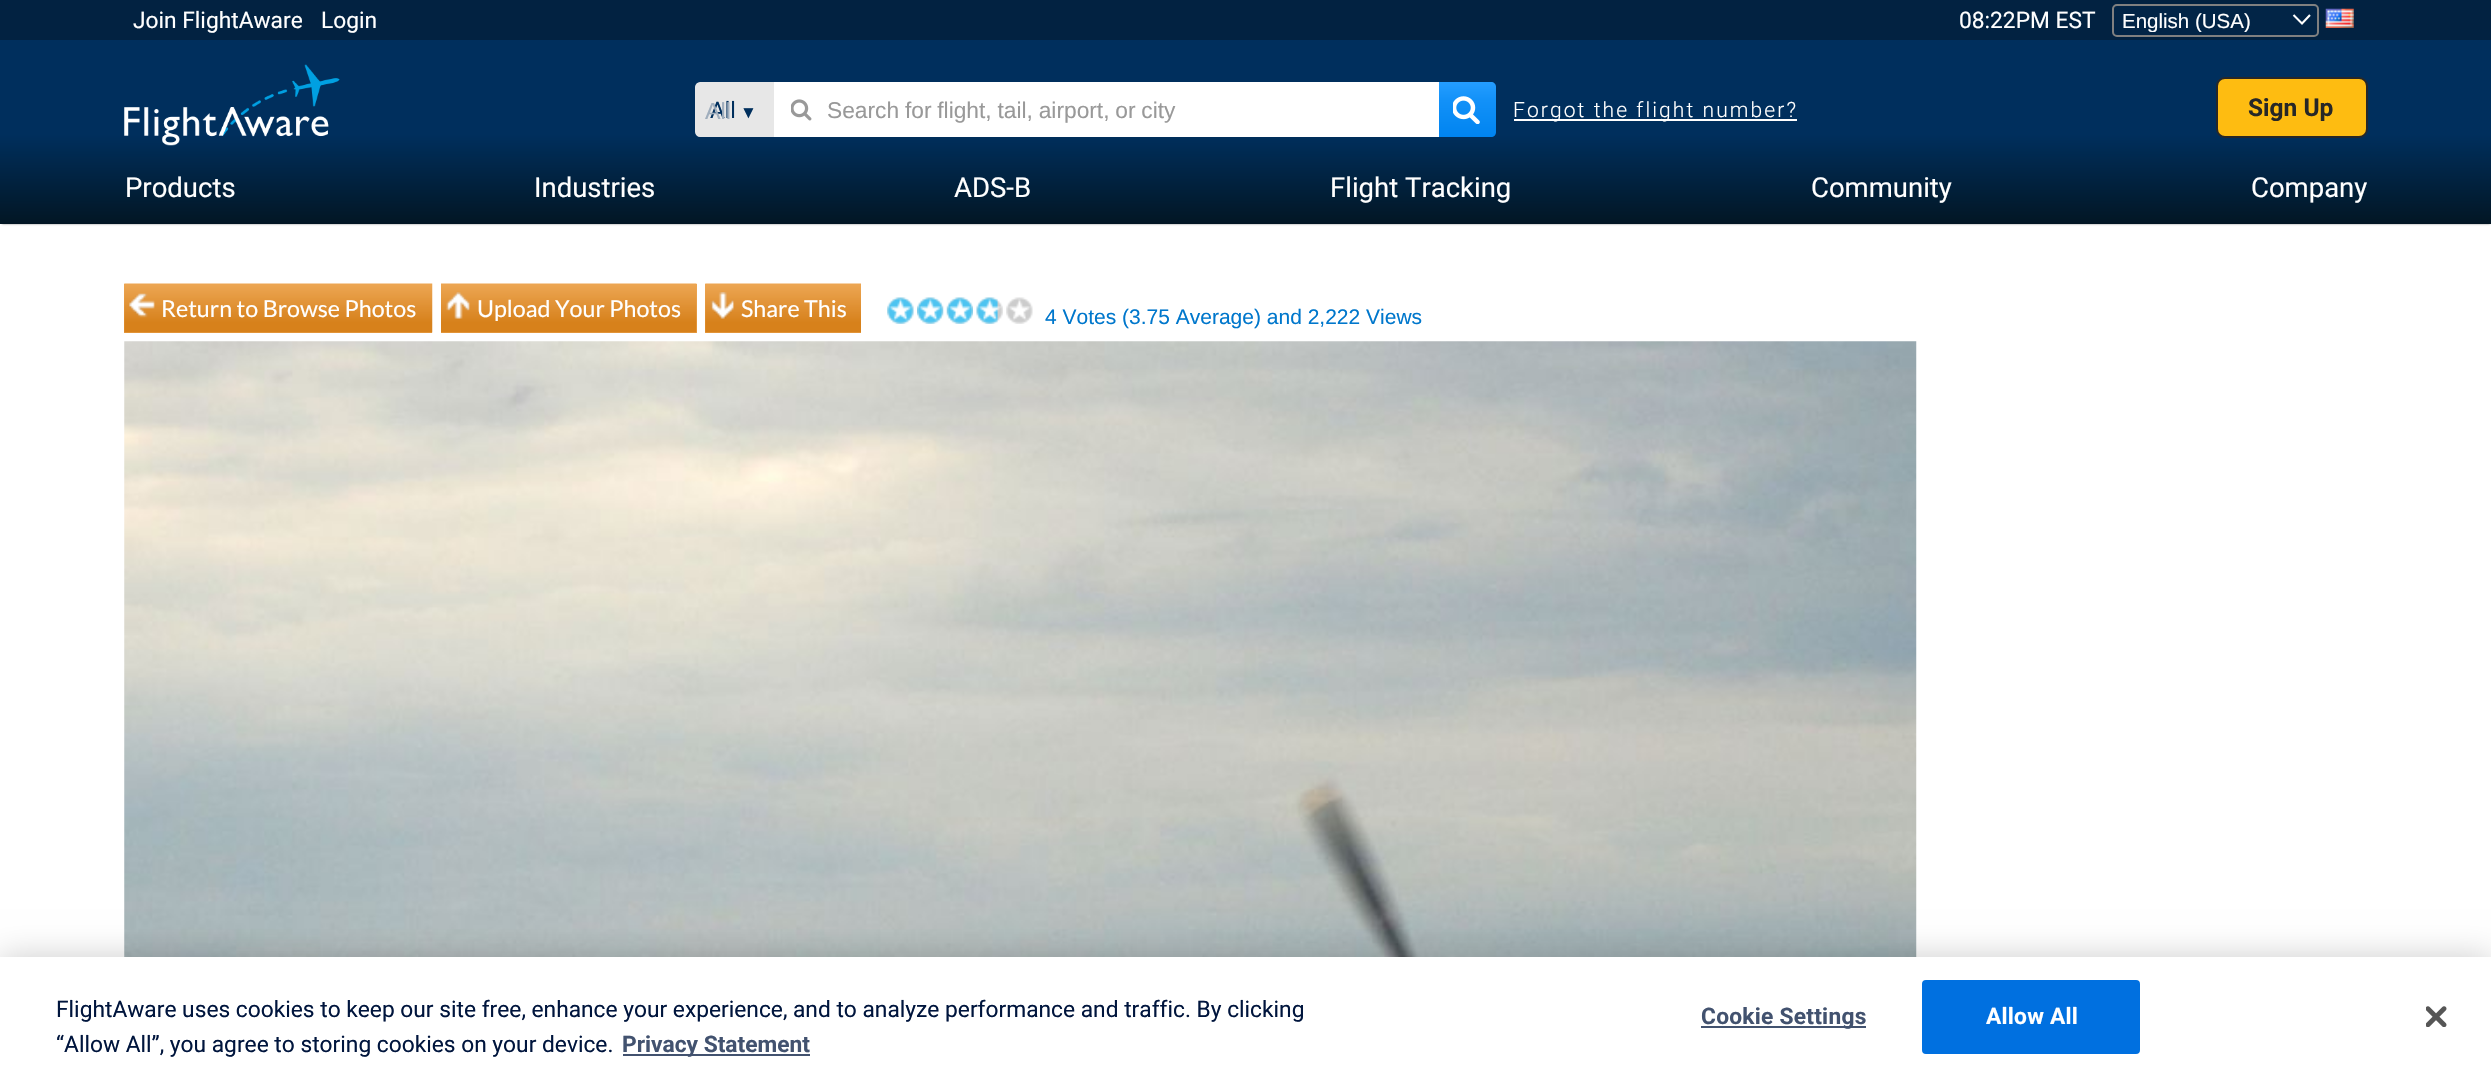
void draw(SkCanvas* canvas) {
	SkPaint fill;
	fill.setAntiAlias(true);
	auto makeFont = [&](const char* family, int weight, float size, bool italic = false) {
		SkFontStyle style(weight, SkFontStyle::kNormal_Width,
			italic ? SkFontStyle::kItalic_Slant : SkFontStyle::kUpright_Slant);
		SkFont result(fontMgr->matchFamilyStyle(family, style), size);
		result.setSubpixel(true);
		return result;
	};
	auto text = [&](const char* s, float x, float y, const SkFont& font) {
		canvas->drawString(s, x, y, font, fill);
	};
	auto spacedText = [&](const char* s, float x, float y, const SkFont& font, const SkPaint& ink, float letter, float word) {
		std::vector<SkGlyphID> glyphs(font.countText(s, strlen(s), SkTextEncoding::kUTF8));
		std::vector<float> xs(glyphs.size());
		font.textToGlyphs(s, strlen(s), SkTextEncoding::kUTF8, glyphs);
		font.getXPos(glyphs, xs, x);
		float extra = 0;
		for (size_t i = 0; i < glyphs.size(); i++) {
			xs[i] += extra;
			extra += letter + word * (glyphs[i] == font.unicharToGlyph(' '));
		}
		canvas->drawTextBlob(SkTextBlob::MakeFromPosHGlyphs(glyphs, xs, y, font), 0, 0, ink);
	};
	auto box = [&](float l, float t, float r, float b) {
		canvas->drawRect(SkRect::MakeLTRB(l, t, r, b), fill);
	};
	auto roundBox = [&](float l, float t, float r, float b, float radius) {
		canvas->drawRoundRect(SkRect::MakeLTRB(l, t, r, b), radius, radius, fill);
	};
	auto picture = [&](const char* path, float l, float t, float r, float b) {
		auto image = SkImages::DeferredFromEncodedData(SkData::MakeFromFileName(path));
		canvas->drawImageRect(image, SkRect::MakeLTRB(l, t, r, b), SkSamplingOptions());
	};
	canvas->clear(0xFFFFFFFF);
	fill.setColor(0xFF888888);
	fill.setMaskFilter(SkMaskFilter::MakeBlur(kNormal_SkBlurStyle, 1));
	canvas->drawRect(SkRect::MakeLTRB(2, 4, 2490, 224), fill);
	fill.setMaskFilter(nullptr);
	{
		const SkColor colors[] = {0xFF002F5D, 0xFF002F5D, 0xFF021624};
		const float stops[] = {0, 0.6f, 1};
		const SkPoint ends[] = {{1246, 0}, {1246, 224}};
		fill.setShader(SkGradientShader::MakeLinear(ends, colors, stops, 3, SkTileMode::kClamp));
		fill.setAlpha(255);
	}
	box(0, 40, 2491, 224);
	fill.setShader(nullptr);
	fill.setColor(0xFF022241);
	box(0, 0, 2491, 40);
	fill.setColor(0xFF022547);
	roundBox(2112, 4, 2319, 37, 5);
	fill.setStyle(SkPaint::kStroke_Style);
	fill.setStrokeWidth(2.1f);
	fill.setColor(0xFFFFFFFF);
	canvas->drawPath(SkPathBuilder().moveTo(2293.5f, 15).lineTo(2302, 23.5f).lineTo(2310, 15).detach(), fill);
	fill.setStrokeWidth(2);
	fill.setColor(0xFF808080);
	canvas->drawRoundRect(SkRect::MakeLTRB(2113, 5, 2318, 36), 4, 4, fill);
	picture("image0.png", 2325, 8, 2354, 28);
	picture("image1.png", 124, 64, 340, 146);
	fill.setStyle(SkPaint::kFill_Style);
	fill.setColor(0xFFE7E7E7);
	canvas->drawPath(SkPathBuilder().moveTo(700, 83).lineTo(773, 83).lineTo(773, 136).lineTo(700, 136).cubicTo(698, 136, 696, 134, 696, 132).lineTo(696, 87).cubicTo(696, 85, 698, 83, 700, 83).close().detach(), fill);
	fill.setStyle(SkPaint::kStroke_Style);
	canvas->drawPath(SkPathBuilder().moveTo(700, 83).lineTo(773, 83).lineTo(773, 136).lineTo(700, 136).cubicTo(698, 136, 696, 134, 696, 132).lineTo(696, 87).cubicTo(696, 85, 698, 83, 700, 83).close().detach(), fill);
	fill.setStyle(SkPaint::kFill_Style);
	fill.setColor(0xFFFFFFFF);
	box(774, 82, 1439, 137);
	picture("image2.png", 791, 99, 812, 121);
	{
		const SkColor colors[] = {0xFF0084F0, 0xFF1291F8, 0xFF249DFF};
		const float stops[] = {0, 0.66f, 1};
		const SkPoint ends[] = {{1467, 137}, {1467, 82}};
		fill.setShader(SkGradientShader::MakeLinear(ends, colors, stops, 3, SkTileMode::kClamp));
		fill.setAlpha(255);
	}
	canvas->drawPath(SkPathBuilder().moveTo(1439, 82).lineTo(1491, 82).cubicTo(1494, 82, 1496, 84, 1496, 87).lineTo(1496, 132).cubicTo(1496, 135, 1494, 137, 1491, 137).lineTo(1439, 137).close().detach(), fill);
	picture("image3.png", 1453, 96, 1480, 124);
	fill.setShader(nullptr);
	fill.setColor(0xFFFFFFFF);
	box(1514, 119, 1797, 121);
	fill.setColor(0xFFFEBC11);
	canvas->drawRoundRect(SkRect::MakeLTRB(2217, 78, 2367, 137), 8, 8, fill);
	fill.setStyle(SkPaint::kStroke_Style);
	fill.setColor(0xFF272727);
	canvas->drawRoundRect(SkRect::MakeLTRB(2217, 78, 2367, 137), 8, 8, fill);
	fill.setStyle(SkPaint::kFill_Style);
	fill.setColor(0xFFEDA653);
	box(124, 284, 432, 333);
	picture("image4.png", 124, 283, 433, 333);
	picture("image5.png", 129, 293, 155, 318);
	box(441, 284, 697, 333);
	picture("image6.png", 441, 283, 697, 333);
	picture("image7.png", 446, 292, 470, 319);
	box(705, 284, 861, 333);
	picture("image8.png", 705, 283, 861, 333);
	picture("image9.png", 710, 292, 734, 319);
	picture("image10.png", 887, 297, 914, 324);
	picture("image11.png", 917, 297, 944, 324);
	picture("image12.png", 946, 297, 973, 324);
	picture("image13.png", 976, 297, 1003, 324);
	picture("image14.png", 1006, 297, 1033, 324);
	picture("image15.png", 124, 341, 1917, 957);
	fill.setColor(0x33000000);
	fill.setMaskFilter(SkMaskFilter::MakeBlur(kNormal_SkBlurStyle, 16));
	canvas->drawRect(SkRect::MakeLTRB(0, 957, 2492, 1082), fill);
	fill.setMaskFilter(nullptr);
	fill.setColor(0xFFFFFFFF);
	box(0, 957, 2491, 1081);
	fill.setColor(0xFF42526F);
	box(623, 1054, 810, 1056);
	box(1701, 1026, 1866, 1028);
	fill.setColor(0xFF0070E0);
	canvas->drawRoundRect(SkRect::MakeLTRB(1923, 981, 2139, 1053), 3, 3, fill);
	fill.setStyle(SkPaint::kStroke_Style);
	canvas->drawRoundRect(SkRect::MakeLTRB(1923, 981, 2139, 1053), 3, 3, fill);
	picture("image16.png", 2426, 1006, 2447, 1027);
	auto font1 = makeFont("Roboto", 400, 22.75f);
	fill.setStyle(SkPaint::kFill_Style);
	fill.setColor(0xFFFFFFFF);
	text("Join FlightAware", 133, 28, font1);
	text("Login", 321, 28, font1);
	text("08:22PM EST", 1959, 28, font1);
	canvas->save();
	canvas->clipRect(SkRect::MakeLTRB(2121, 9, 2310, 32));
	auto font2 = makeFont("Liberation Sans", 400, 20.5f);
	text("English (USA)", 2122, 28, font2);
	canvas->restore();
	fill.setColor(0xFF002F5D);
	text("All", 710, 118, font1);
	auto font3 = makeFont("Liberation Sans", 400, 17);
	text("▼", 740, 118, font3);
	auto font4 = makeFont("Liberation Sans", 400, 23.25f);
	fill.setColor(0xFFA0AEBD);
	text("All", 705, 119, font4);
	auto font5 = makeFont("Liberation Sans", 400, 22.75f);
	fill.setColor(0xFF999999);
	spacedText("Search for flight, tail, airport, or city", 827, 118, font5, fill, 0, -0.5f);
	auto font6 = makeFont("Roboto", 300, 21);
	fill.setColor(0xFFFFFFFF);
	spacedText("Forgot the flight number?", 1513, 117, font6, fill, 2.1f, 0);
	auto font7 = makeFont("Roboto", 700, 24.5f);
	fill.setColor(0xFF272727);
	text("Sign Up", 2248, 116, font7);
	auto font8 = makeFont("Roboto", 400, 27.5f);
	fill.setColor(0xFFFFFFFF);
	text("Products", 125, 197, font8);
	text("Industries", 534, 197, font8);
	text("ADS-B", 954, 197, font8);
	text("Flight Tracking", 1330, 197, font8);
	text("Community", 1811, 197, font8);
	text("Company", 2251, 197, font8);
	auto font9 = makeFont("Lato", 400, 23.25f);
	text("Return to Browse Photos", 161, 317, font9);
	text("Upload Your Photos", 477, 317, font9);
	text("Share This", 741, 317, font9);
	auto font10 = makeFont("Liberation Sans", 400, 21);
	fill.setColor(0xFF0077CC);
	text("4 Votes (3.75 Average) and 2,222 Views", 1045, 324, font10);
	fill.setColor(0xFF00153D);
	text("FlightAware uses cookies to keep our site free, enhance your experience, and to analyze performance and traffic. By clicking", 56, 1017, font1);
	text("“Allow All”, you agree to storing cookies on your device.", 56, 1052, font1);
	auto font11 = makeFont("Roboto", 700, 22.75f);
	fill.setColor(0xFF42526F);
	text("Privacy Statement", 622, 1052, font11);
	spacedText("Cookie Settings", 1701, 1024, font11, fill, 0.25f, 0);
	fill.setColor(0xFFFFFFFF);
	spacedText("Allow All", 1986, 1024, font11, fill, 0.25f, 0);
}
